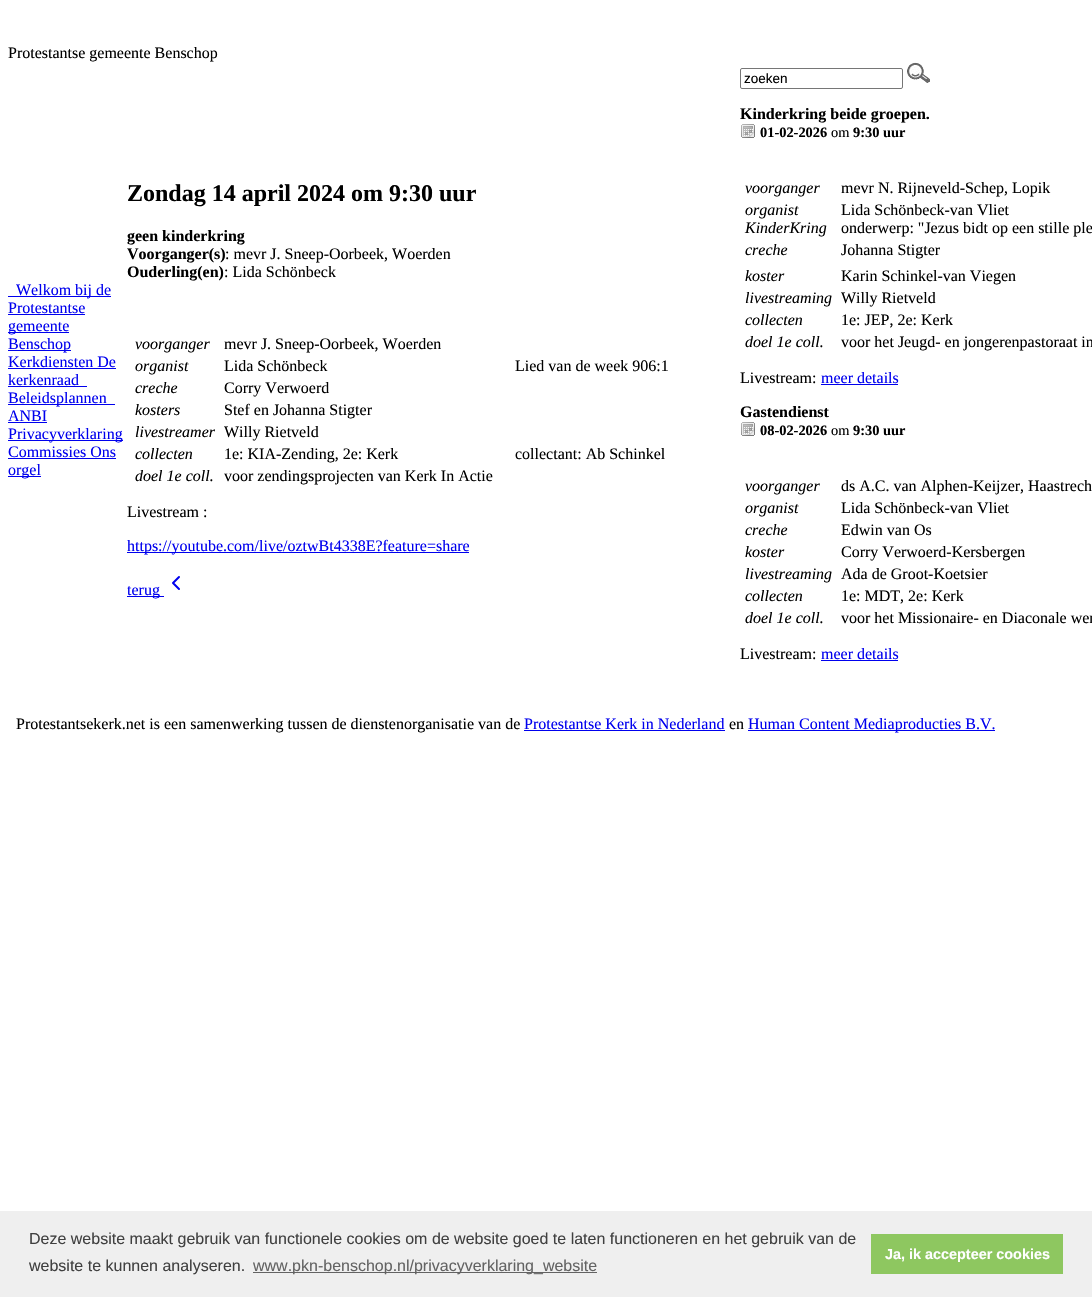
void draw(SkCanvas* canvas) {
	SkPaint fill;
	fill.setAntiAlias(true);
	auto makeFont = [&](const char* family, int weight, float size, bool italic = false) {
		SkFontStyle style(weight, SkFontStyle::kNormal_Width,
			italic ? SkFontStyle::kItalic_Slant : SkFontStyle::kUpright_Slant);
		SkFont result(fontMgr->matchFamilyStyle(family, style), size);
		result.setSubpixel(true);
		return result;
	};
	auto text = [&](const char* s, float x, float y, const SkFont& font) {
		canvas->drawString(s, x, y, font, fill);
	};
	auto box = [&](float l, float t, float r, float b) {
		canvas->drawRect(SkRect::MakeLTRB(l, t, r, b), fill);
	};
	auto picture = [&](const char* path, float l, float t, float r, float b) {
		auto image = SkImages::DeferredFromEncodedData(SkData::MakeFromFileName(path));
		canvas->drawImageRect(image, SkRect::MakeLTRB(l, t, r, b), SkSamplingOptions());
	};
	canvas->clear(0xFFFFFFFF);
	fill.setColor(0xFF0000EE);
	box(8, 296, 111, 297);
	box(8, 314, 85, 315);
	box(8, 332, 69, 333);
	box(8, 350, 71, 351);
	box(8, 368, 116, 369);
	box(8, 386, 87, 387);
	box(8, 404, 115, 405);
	box(8, 422, 47, 423);
	box(8, 440, 123, 441);
	box(8, 458, 116, 459);
	box(8, 476, 41, 477);
	box(127, 552, 469, 553);
	box(127, 596, 164, 597);
	fill.setStyle(SkPaint::kStroke_Style);
	fill.setStrokeWidth(2);
	fill.setStrokeCap(SkPaint::kRound_Cap);
	fill.setStrokeJoin(SkPaint::kRound_Join);
	canvas->drawPath(SkPathBuilder().moveTo(179, 589).lineTo(173, 583).lineTo(179, 577).detach(), fill);
	fill.setStrokeWidth(1);
	fill.setStrokeCap(SkPaint::kButt_Cap);
	fill.setStrokeJoin(SkPaint::kMiter_Join);
	fill.setColor(0xFF767676);
	canvas->drawRoundRect(SkRect::MakeLTRB(740.5f, 68.5f, 902.5f, 88.5f), 1.5f, 1.5f, fill);
	picture("image0.png", 907, 62, 930, 83);
	picture("image1.png", 741, 124, 755, 138);
	fill.setStyle(SkPaint::kFill_Style);
	fill.setColor(0xFF0000EE);
	box(821, 384, 898, 385);
	picture("image1.png", 741, 422, 755, 436);
	box(821, 660, 898, 661);
	box(524, 730, 725, 731);
	box(748, 730, 995, 731);
	fill.setColor(0xFFEFEFEF);
	box(0, 1211, 1092, 1297);
	fill.setColor(0xFF636363);
	box(253, 1272, 597, 1273);
	fill.setColor(0xFF8EC760);
	box(871, 1234, 1063, 1274);
	auto font1 = makeFont("Liberation Serif", 400, 16);
	fill.setColor(0xFF000000);
	text("Protestantse gemeente Benschop", 8, 58, font1);
	fill.setColor(0xFF0000EE);
	text("Welkom bij de", 16, 295, font1);
	text("Protestantse", 8, 313, font1);
	text("gemeente", 8, 331, font1);
	text("Benschop", 8, 349, font1);
	text("Kerkdiensten De", 8, 367, font1);
	text("kerkenraad", 8, 385, font1);
	text("Beleidsplannen", 8, 403, font1);
	text("ANBI", 8, 421, font1);
	text("Privacyverklaring", 8, 439, font1);
	text("Commissies Ons", 8, 457, font1);
	text("orgel", 8, 475, font1);
	auto font2 = makeFont("Liberation Serif", 700, 24);
	fill.setColor(0xFF000000);
	text("Zondag 14 april 2024 om 9:30 uur", 127, 201, font2);
	auto font3 = makeFont("Liberation Serif", 700, 16);
	text("geen kinderkring", 127, 241, font3);
	text("Voorganger(s)", 127, 259, font3);
	text(": mevr J. Sneep-Oorbeek, Woerden", 225, 259, font1);
	text("Ouderling(en)", 127, 277, font3);
	text(": Lida Schönbeck", 224, 277, font1);
	auto font4 = makeFont("Liberation Serif", 400, 16, true);
	text("voorganger", 135, 349, font4);
	text("mevr J. Sneep-Oorbeek, Woerden", 224, 349, font1);
	text("organist", 135, 371, font4);
	text("Lida Schönbeck", 224, 371, font1);
	text("Lied van de week 906:1", 515, 371, font1);
	text("creche", 135, 393, font4);
	text("Corry Verwoerd", 224, 393, font1);
	text("kosters", 135, 415, font4);
	text("Stef en Johanna Stigter", 224, 415, font1);
	text("livestreamer", 135, 437, font4);
	text("Willy Rietveld", 224, 437, font1);
	text("collecten", 135, 459, font4);
	text("1e: KIA-Zending, 2e: Kerk", 224, 459, font1);
	text("collectant: Ab Schinkel", 515, 459, font1);
	text("doel 1e coll.", 135, 481, font4);
	text("voor zendingsprojecten van Kerk In Actie", 224, 481, font1);
	text("Livestream :", 127, 517, font1);
	fill.setColor(0xFF0000EE);
	text("https://youtube.com/live/oztwBt4338E?feature=share", 127, 551, font1);
	text("terug", 127, 595, font1);
	auto font5 = makeFont("Liberation Sans", 400, 13.5f);
	fill.setColor(0xFF000000);
	text("zoeken", 744, 83, font5);
	text("Kinderkring beide groepen.", 740, 119, font3);
	auto font6 = makeFont("Liberation Serif", 700, 14.4f);
	text("01-02-2026", 760, 137, font6);
	auto font7 = makeFont("Liberation Serif", 400, 14.4f);
	text("om", 831, 137, font7);
	text("9:30 uur", 853, 137, font6);
	text("voorganger", 745, 193, font4);
	text("mevr N. Rijneveld-Schep, Lopik", 841, 193, font1);
	text("organist", 745, 215, font4);
	text("Lida Schönbeck-van Vliet", 841, 215, font1);
	text("KinderKring", 745, 233, font4);
	text("onderwerp: \"Jezus bidt op een stille ple", 841, 233, font1);
	text("creche", 745, 255, font4);
	text("Johanna Stigter", 841, 255, font1);
	text("koster", 745, 281, font4);
	text("Karin Schinkel-van Viegen", 841, 281, font1);
	text("livestreaming", 745, 303, font4);
	text("Willy Rietveld", 841, 303, font1);
	text("collecten", 745, 325, font4);
	text("1e: JEP, 2e: Kerk", 841, 325, font1);
	text("doel 1e coll.", 745, 347, font4);
	text("voor het Jeugd- en jongerenpastoraat in", 841, 347, font1);
	text("Livestream:", 740, 383, font1);
	fill.setColor(0xFF0000EE);
	text("meer details", 821, 383, font1);
	fill.setColor(0xFF000000);
	text("Gastendienst", 740, 417, font3);
	text("08-02-2026", 760, 435, font6);
	text("om", 831, 435, font7);
	text("9:30 uur", 853, 435, font6);
	text("voorganger", 745, 491, font4);
	text("ds A.C. van Alphen-Keijzer, Haastrech", 841, 491, font1);
	text("organist", 745, 513, font4);
	text("Lida Schönbeck-van Vliet", 841, 513, font1);
	text("creche", 745, 535, font4);
	text("Edwin van Os", 841, 535, font1);
	text("koster", 745, 557, font4);
	text("Corry Verwoerd-Kersbergen", 841, 557, font1);
	text("livestreaming", 745, 579, font4);
	text("Ada de Groot-Koetsier", 841, 579, font1);
	text("collecten", 745, 601, font4);
	text("1e: MDT, 2e: Kerk", 841, 601, font1);
	text("doel 1e coll.", 745, 623, font4);
	text("voor het Missionaire- en Diaconale wer", 841, 623, font1);
	text("Livestream:", 740, 659, font1);
	fill.setColor(0xFF0000EE);
	text("meer details", 821, 659, font1);
	fill.setColor(0xFF000000);
	text("Protestantsekerk.net is een samenwerking tussen de dienstenorganisatie van de", 16, 729, font1);
	fill.setColor(0xFF0000EE);
	text("Protestantse Kerk in Nederland", 524, 729, font1);
	fill.setColor(0xFF000000);
	text("en", 729, 729, font1);
	fill.setColor(0xFF0000EE);
	text("Human Content Mediaproducties B.V.", 748, 729, font1);
	auto font8 = makeFont("Liberation Sans", 400, 16);
	fill.setColor(0xFF404040);
	text("Deze website maakt gebruik van functionele cookies om de website goed te laten functioneren en het gebruik van de", 29, 1244, font8);
	text("website te kunnen analyseren.", 29, 1271, font8);
	fill.setColor(0xFF636363);
	text("www.pkn-benschop.nl/privacyverklaring_website", 253, 1271, font8);
	auto font9 = makeFont("Liberation Sans", 700, 14.4f);
	fill.setColor(0xFFFFFFFF);
	text("Ja, ik accepteer cookies", 885, 1259, font9);
}
